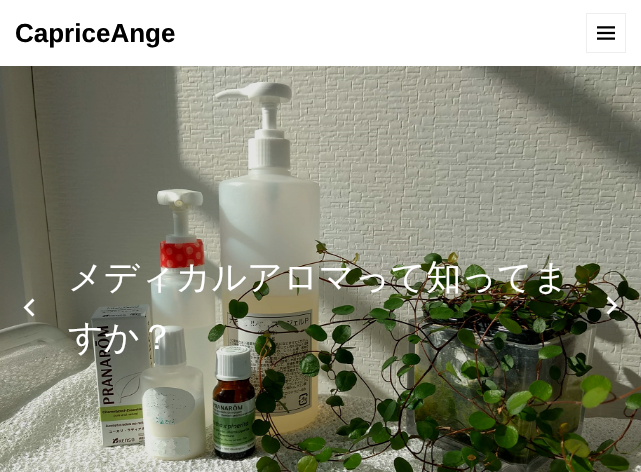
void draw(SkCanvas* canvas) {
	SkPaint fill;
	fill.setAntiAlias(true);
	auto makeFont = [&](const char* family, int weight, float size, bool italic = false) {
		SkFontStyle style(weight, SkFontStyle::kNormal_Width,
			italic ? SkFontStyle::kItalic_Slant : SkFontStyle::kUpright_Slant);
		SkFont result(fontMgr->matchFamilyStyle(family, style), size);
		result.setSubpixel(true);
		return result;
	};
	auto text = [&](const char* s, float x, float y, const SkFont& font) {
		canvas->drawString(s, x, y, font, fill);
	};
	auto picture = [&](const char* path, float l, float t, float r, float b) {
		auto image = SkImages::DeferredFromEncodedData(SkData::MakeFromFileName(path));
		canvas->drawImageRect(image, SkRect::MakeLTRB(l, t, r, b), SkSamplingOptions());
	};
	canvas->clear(0xFFFFFFFF);
	fill.setStyle(SkPaint::kStroke_Style);
	fill.setStrokeWidth(1);
	fill.setColor(0xFFEEEEEE);
	canvas->drawRect(SkRect::MakeLTRB(586.5f, 13.5f, 625.5f, 52.5f), fill);
	picture("image0.png", 597, 26, 615, 40);
	picture("image1.png", 0, 66, 641, 472);
	fill.setStyle(SkPaint::kFill_Style);
	fill.setColor(0xFFFFFFFF);
	canvas->drawPath(SkPathBuilder().moveTo(34.5f, 300.5f).lineTo(27.5f, 307.5f).lineTo(34.5f, 314.5f).lineTo(32.5f, 316.5f).lineTo(23.5f, 307.5f).lineTo(32.5f, 298.5f).close().detach(), fill);
	canvas->drawPath(SkPathBuilder().moveTo(606.5f, 312.5f).lineTo(613.5f, 305.5f).lineTo(606.5f, 298.5f).lineTo(608.5f, 296.5f).lineTo(617.5f, 305.5f).lineTo(608.5f, 314.5f).close().detach(), fill);
	auto font1 = makeFont("Liberation Sans", 700, 26);
	fill.setColor(0xFF000000);
	text("CapriceAnge", 15, 42, font1);
	auto font2 = makeFont("WenQuanYi Zen Hei", 500, 35);
	fill.setColor(0xFFFFFFFF);
	text("メディカルアロマって知ってま", 68, 289, font2);
	text("すか？", 68, 349, font2);
}
